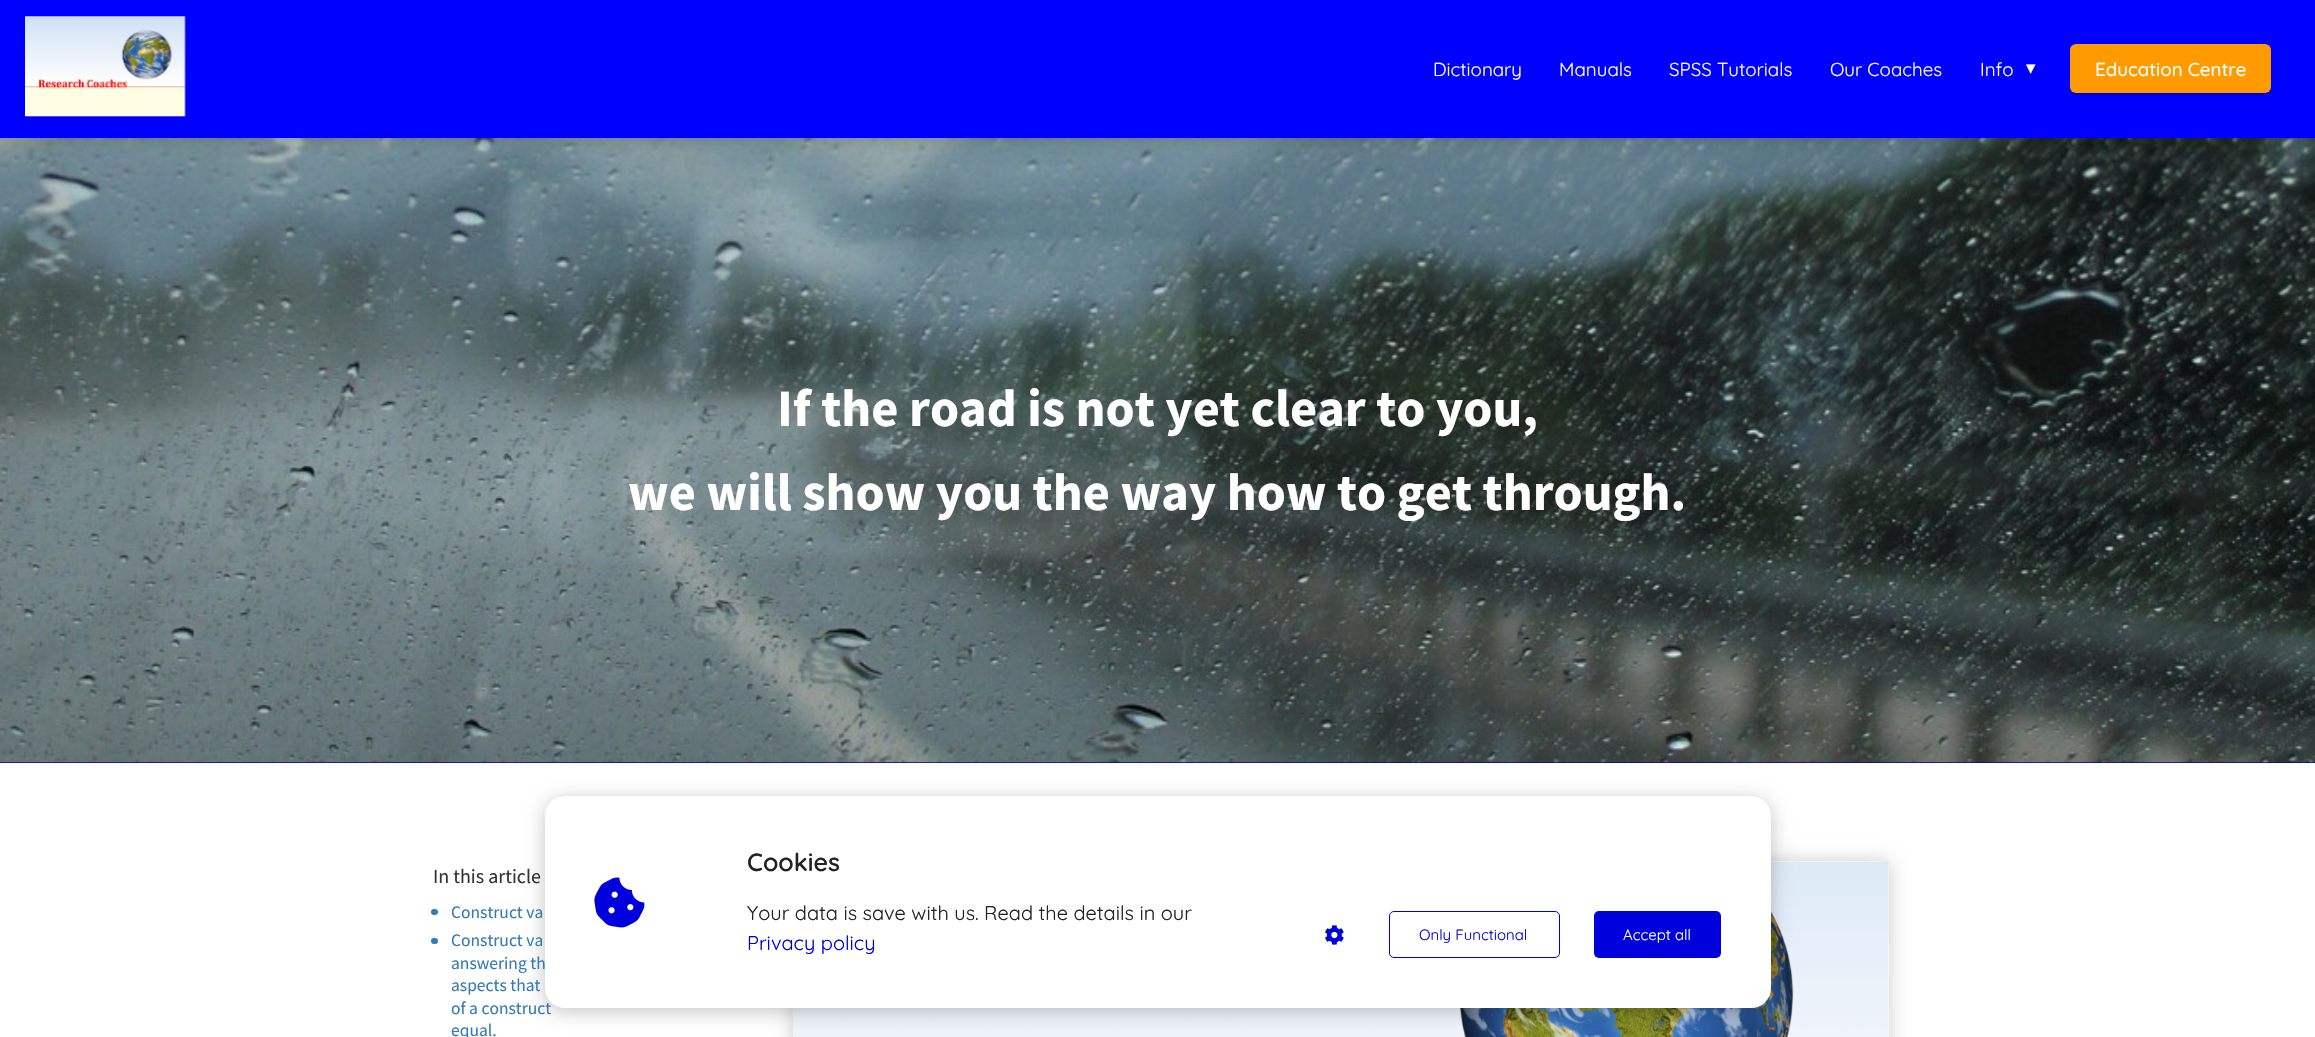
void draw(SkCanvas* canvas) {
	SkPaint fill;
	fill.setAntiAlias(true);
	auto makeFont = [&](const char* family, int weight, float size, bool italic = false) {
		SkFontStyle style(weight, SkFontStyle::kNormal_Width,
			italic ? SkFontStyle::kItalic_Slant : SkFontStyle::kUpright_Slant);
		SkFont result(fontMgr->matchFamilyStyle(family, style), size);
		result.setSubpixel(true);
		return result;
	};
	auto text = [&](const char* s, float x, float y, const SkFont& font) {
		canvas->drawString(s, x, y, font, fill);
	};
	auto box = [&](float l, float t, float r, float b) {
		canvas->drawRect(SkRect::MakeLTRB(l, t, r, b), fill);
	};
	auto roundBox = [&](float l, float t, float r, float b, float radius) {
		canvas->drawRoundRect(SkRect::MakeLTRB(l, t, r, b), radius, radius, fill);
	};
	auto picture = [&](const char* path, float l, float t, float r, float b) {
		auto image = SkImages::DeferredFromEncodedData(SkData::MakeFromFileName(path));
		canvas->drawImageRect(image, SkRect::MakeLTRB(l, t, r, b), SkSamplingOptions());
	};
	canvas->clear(0xFFFFFFFF);
	{
		const SkColor colors[] = {0xFF0000DD, 0xFF0000B9};
		const float stops[] = {0, 1};
		const SkPoint ends[] = {{1158, 137}, {1158, 763}};
		fill.setShader(SkGradientShader::MakeLinear(ends, colors, stops, 2, SkTileMode::kClamp));
		fill.setAlpha(255);
	}
	box(0, 762, 2315, 763);
	picture("image1.png", 0, 138, 2315, 763);
	fill.setShader(nullptr);
	fill.setColor(0x33000000);
	fill.setMaskFilter(SkMaskFilter::MakeBlur(kNormal_SkBlurStyle, 9.5f));
	canvas->drawRect(SkRect::MakeLTRB(0, 0, 2315, 138), fill);
	fill.setMaskFilter(nullptr);
	fill.setColor(0xFF0000FF);
	box(0, 0, 2315, 138);
	picture("image0.png", 25, 16, 186, 117);
	fill.setColor(0x33000000);
	fill.setMaskFilter(SkMaskFilter::MakeBlur(kNormal_SkBlurStyle, 0.5f));
	canvas->drawRoundRect(SkRect::MakeLTRB(2070, 46, 2271, 95), 6, 6, fill);
	fill.setMaskFilter(nullptr);
	fill.setColor(0xFFFF9B00);
	roundBox(2070, 44, 2271, 93, 6);
	fill.setColor(0xFF337AB7);
	roundBox(431, 909, 438, 915, 3);
	roundBox(431, 938, 438, 944, 3);
	fill.setColor(0x33000000);
	fill.setMaskFilter(SkMaskFilter::MakeBlur(kNormal_SkBlurStyle, 9.5f));
	canvas->drawRoundRect(SkRect::MakeLTRB(793, 861, 1889, 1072), 6, 6, fill);
	fill.setMaskFilter(nullptr);
	fill.setColor(0xFFFFFFFF);
	roundBox(793, 861, 1889, 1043, 6);
	picture("image2.png", 792, 861, 1889, 1037);
	fill.setColor(0x3D000000);
	fill.setMaskFilter(SkMaskFilter::MakeBlur(kNormal_SkBlurStyle, 9.5f));
	canvas->drawRoundRect(SkRect::MakeLTRB(545, 800, 1771, 1011), 20, 20, fill);
	fill.setMaskFilter(nullptr);
	auto font1 = makeFont("Quicksand", 400, 18.75f);
	fill.setColor(0xFFFFFFFF);
	text("Dictionary", 1433, 76, font1);
	text("Manuals", 1559, 76, font1);
	text("SPSS Tutorials", 1669, 76, font1);
	text("Our Coaches", 1830, 76, font1);
	text("Info", 1980, 76, font1);
	auto font2 = makeFont("DejaVu Sans", 400, 18.75f);
	text("▾", 2026, 74, font2);
	auto font3 = makeFont("Quicksand", 500, 18.75f);
	text("Education Centre", 2095, 76, font3);
	auto font4 = makeFont("Source Sans Pro", 700, 52.5f);
	text("If the road is not yet clear to you,", 777, 426, font4);
	text("we will show you the way how to get through.", 628, 510, font4);
	auto font5 = makeFont("Source Sans Pro", 400, 20);
	fill.setColor(0xFF333333);
	text("In this article", 433, 883, font5);
	auto font6 = makeFont("Source Sans Pro", 400, 17.5f);
	fill.setColor(0xFF337AB7);
	text("Construct va", 451, 918, font6);
	text("Construct va", 451, 946, font6);
	text("answering th", 451, 969, font6);
	text("aspects that", 451, 991, font6);
	text("of a construct", 451, 1014, font6);
	text("equal.", 451, 1036, font6);
	fill.setColor(0xFFFFFFFF);
	roundBox(545, 796, 1771, 1008, 20);
	picture("image3.png", 594, 877, 645, 928);
	auto font7 = makeFont("Quicksand", 600, 25);
	fill.setColor(0xFF222222);
	text("Cookies", 747, 871, font7);
	auto font8 = makeFont("Quicksand", 400, 20);
	text("Your data is save with us. Read the details in our", 747, 920, font8);
	fill.setColor(0xFF0000DD);
	text("Privacy policy", 747, 950, font8);
	picture("image4.png", 1325, 925, 1344, 945);
	fill.setStyle(SkPaint::kStroke_Style);
	fill.setStrokeWidth(1);
	canvas->drawRoundRect(SkRect::MakeLTRB(1389.5f, 911.5f, 1559.5f, 957.5f), 4.5f, 4.5f, fill);
	auto font9 = makeFont("Quicksand", 400, 15);
	fill.setStyle(SkPaint::kFill_Style);
	text("Only Functional", 1419, 940, font9);
	roundBox(1594, 911, 1721, 958, 5);
	fill.setColor(0xFFFFFFFF);
	text("Accept all", 1623, 940, font9);
}
